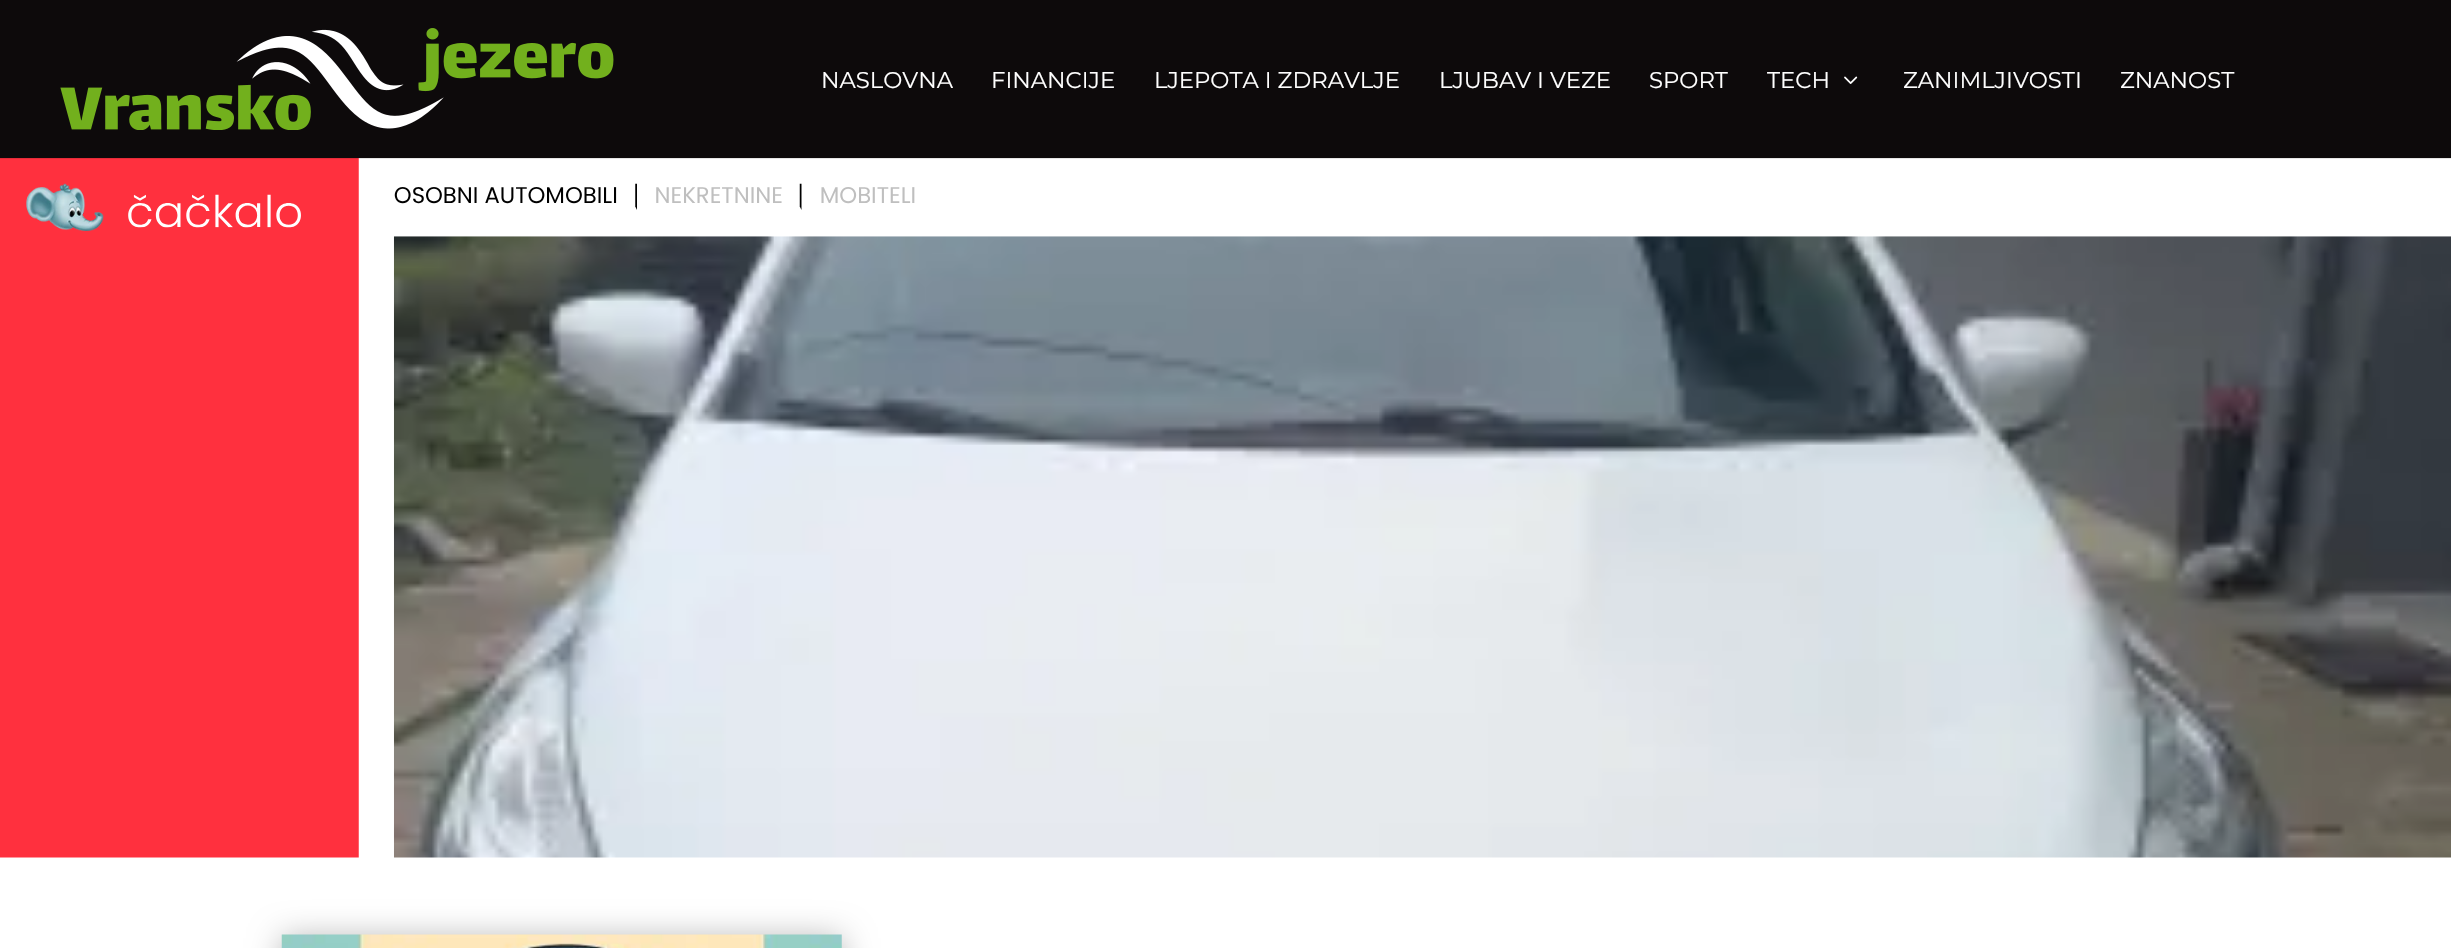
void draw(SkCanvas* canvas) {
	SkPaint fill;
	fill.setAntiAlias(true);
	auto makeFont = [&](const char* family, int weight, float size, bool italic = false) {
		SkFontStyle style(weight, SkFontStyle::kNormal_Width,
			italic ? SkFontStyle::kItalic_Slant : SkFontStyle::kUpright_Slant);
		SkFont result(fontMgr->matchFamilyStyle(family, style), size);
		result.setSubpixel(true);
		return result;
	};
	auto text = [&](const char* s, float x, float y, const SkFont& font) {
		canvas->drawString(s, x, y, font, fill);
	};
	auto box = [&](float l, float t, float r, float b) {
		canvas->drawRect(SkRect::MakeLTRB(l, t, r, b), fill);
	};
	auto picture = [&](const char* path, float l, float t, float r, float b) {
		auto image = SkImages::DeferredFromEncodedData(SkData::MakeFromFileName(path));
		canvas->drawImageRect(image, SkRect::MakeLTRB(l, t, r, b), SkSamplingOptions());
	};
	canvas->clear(0xFFFFFFFF);
	picture("image2.png", 0, 158, 2451, 858);
	fill.setColor(0x1A000000);
	canvas->drawPath(SkPathBuilder().moveTo(0, 158).lineTo(0, 159).lineTo(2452, 159).lineTo(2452, 2).lineTo(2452, 158).close().detach(), fill);
	fill.setColor(0xFF0D0A0B);
	box(0, 0, 2451, 158);
	picture("image0.png", 60, 28, 614, 130);
	picture("image1.png", 1844, 76, 1858, 84);
	fill.setColor(0x4D000000);
	fill.setMaskFilter(SkMaskFilter::MakeBlur(kNormal_SkBlurStyle, 16));
	canvas->drawRect(SkRect::MakeLTRB(282, 938, 842, 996), fill);
	fill.setMaskFilter(nullptr);
	picture("image3.png", 281, 934, 842, 948);
	auto font1 = makeFont("Montserrat", 400, 22.75f);
	fill.setColor(0xFFFFFFFF);
	text("NASLOVNA", 821, 88, font1);
	text("FINANCIJE", 991, 88, font1);
	text("LJEPOTA I ZDRAVLJE", 1154, 88, font1);
	text("LJUBAV I VEZE", 1439, 88, font1);
	text("SPORT", 1649, 88, font1);
	text("TECH", 1767, 88, font1);
	text("ZANIMLJIVOSTI", 1903, 88, font1);
	text("ZNANOST", 2120, 88, font1);
}
